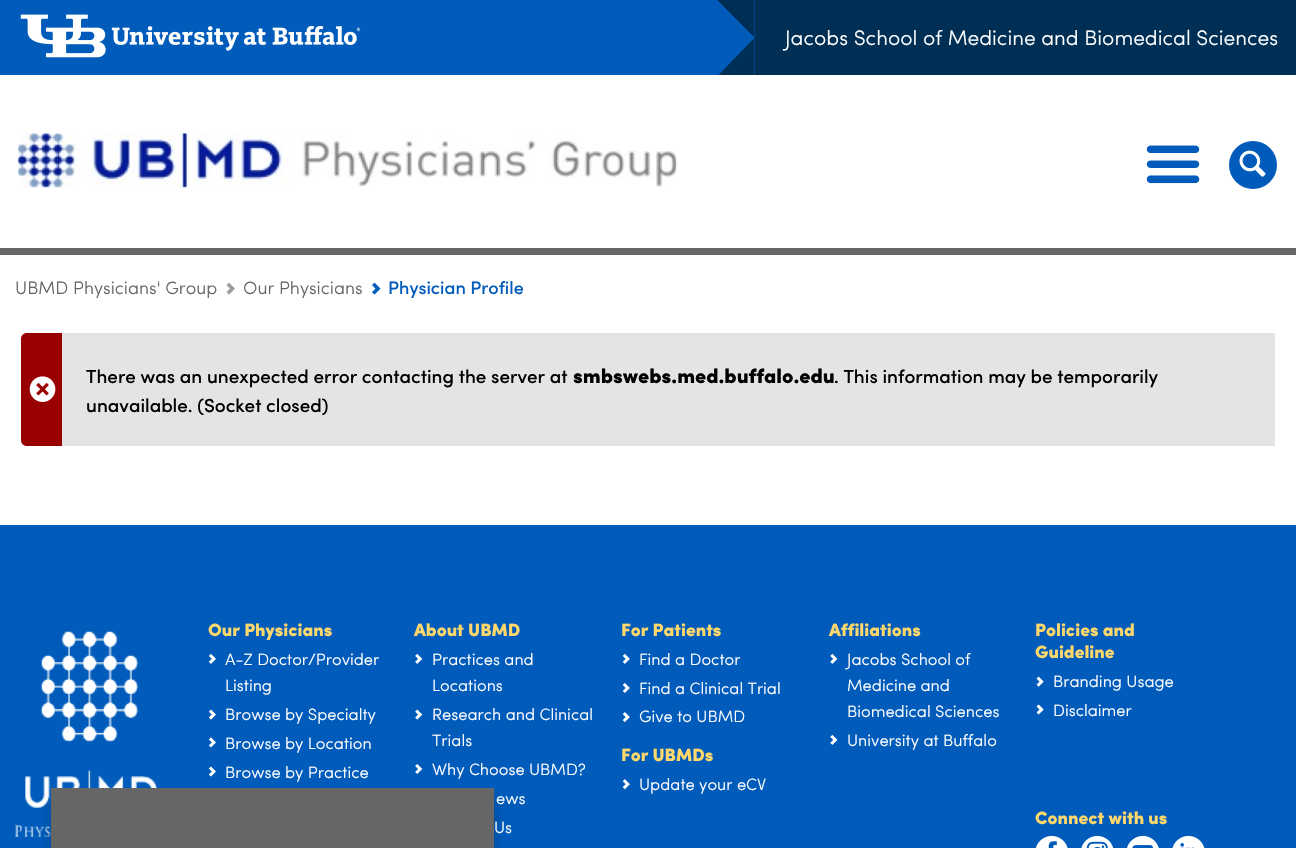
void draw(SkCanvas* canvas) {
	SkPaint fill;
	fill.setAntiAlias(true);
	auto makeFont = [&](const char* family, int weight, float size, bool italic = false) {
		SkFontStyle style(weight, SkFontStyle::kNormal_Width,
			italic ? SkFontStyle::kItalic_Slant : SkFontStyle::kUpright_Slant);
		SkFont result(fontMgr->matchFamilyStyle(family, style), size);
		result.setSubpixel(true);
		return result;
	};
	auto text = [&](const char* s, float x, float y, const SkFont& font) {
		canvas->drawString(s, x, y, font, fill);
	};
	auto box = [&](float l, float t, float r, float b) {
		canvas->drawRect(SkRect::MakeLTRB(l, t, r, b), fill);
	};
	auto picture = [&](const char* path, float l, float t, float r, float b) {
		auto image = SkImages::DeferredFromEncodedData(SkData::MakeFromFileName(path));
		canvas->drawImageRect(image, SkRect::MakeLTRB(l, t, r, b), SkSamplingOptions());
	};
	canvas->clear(0xFF005BBB);
	fill.setColor(0xFFFFFFFF);
	box(0, 255, 1296, 525);
	fill.setColor(0xFF002F56);
	box(755, 0, 1296, 75);
	picture("image0.png", 20, 14, 361, 58);
	canvas->drawPath(SkPathBuilder().moveTo(717, 0).lineTo(754.5f, 0).lineTo(754.5f, 37.5f).close().detach(), fill);
	canvas->drawPath(SkPathBuilder().moveTo(754.5f, 76.5f).lineTo(717, 76.5f).lineTo(754.5f, 37.5f).close().detach(), fill);
	fill.setColor(0xFF005BBB);
	canvas->drawPath(SkPathBuilder().moveTo(717, 76).lineTo(717, 0).lineTo(754, 38).close().detach(), fill);
	fill.setColor(0xFFFFFFFF);
	box(0, 75, 1296, 248);
	picture("image1.png", 18, 133, 677, 189);
	fill.setColor(0xFF666666);
	box(0, 248, 1296, 255);
	picture("image2.png", 1146, 145, 1200, 184);
	fill.setColor(0xFF005BBB);
	canvas->drawCircle(1253, 165, 24, fill);
	picture("image3.png", 1239, 150, 1266, 177);
	picture("image4.png", 226, 282, 235, 295);
	picture("image5.png", 372, 282, 381, 295);
	fill.setColor(0xFFE4E4E4);
	canvas->drawPath(SkPathBuilder().moveTo(27, 333).lineTo(1275, 333).lineTo(1275, 446).lineTo(27, 446).cubicTo(23.5f, 446, 21, 443.5f, 21, 440).lineTo(21, 339).cubicTo(21, 335.5f, 23.5f, 333, 27, 333).close().detach(), fill);
	fill.setColor(0xFF990000);
	canvas->drawPath(SkPathBuilder().moveTo(27, 333).lineTo(62, 333).lineTo(62, 446).lineTo(27, 446).cubicTo(23.5f, 446, 21, 443.5f, 21, 440).lineTo(21, 339).cubicTo(21, 335.5f, 23.5f, 333, 27, 333).close().detach(), fill);
	picture("image6.png", 29, 376, 56, 402);
	picture("image7.png", 15, 631, 158, 837);
	picture("image8.png", 208, 653, 216, 664);
	picture("image9.png", 208, 709, 216, 720);
	picture("image10.png", 208, 737, 216, 748);
	picture("image11.png", 208, 766, 216, 777);
	picture("image12.png", 415, 653, 423, 664);
	picture("image13.png", 415, 709, 423, 720);
	picture("image14.png", 415, 764, 423, 774);
	picture("image15.png", 622, 653, 630, 664);
	picture("image16.png", 622, 683, 630, 693);
	picture("image17.png", 622, 712, 630, 723);
	picture("image18.png", 622, 779, 630, 790);
	picture("image19.png", 830, 653, 838, 664);
	picture("image19.png", 830, 734, 838, 745);
	picture("image20.png", 1036, 676, 1044, 687);
	picture("image21.png", 1036, 704, 1044, 715);
	picture("image22.png", 1035, 835, 1068, 848);
	picture("image23.png", 1081, 835, 1114, 848);
	picture("image24.png", 1127, 835, 1159, 848);
	picture("image25.png", 1172, 835, 1205, 848);
	fill.setColor(0x33000000);
	fill.setMaskFilter(SkMaskFilter::MakeBlur(kNormal_SkBlurStyle, 6.5f));
	canvas->drawRect(SkRect::MakeLTRB(51, 800, 494, 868), fill);
	fill.setMaskFilter(nullptr);
	fill.setColor(0xFF666666);
	box(51, 788, 494, 848);
	auto font1 = makeFont("Sofia", 400, 21);
	fill.setColor(0xFFFFFFFF);
	text("Jacobs School of Medicine and Biomedical Sciences", 785, 45, font1);
	auto font2 = makeFont("Sofia", 400, 18);
	fill.setColor(0xFF666666);
	text("UBMD Physicians' Group", 15, 294, font2);
	text("Our Physicians", 243, 294, font2);
	auto font3 = makeFont("Sofia", 500, 18);
	fill.setColor(0xFF005BBB);
	text("Physician Profile", 388, 294, font3);
	auto font4 = makeFont("Sofia", 500, 18.9f);
	fill.setColor(0xFF000000);
	text("There was an unexpected error contacting the server at", 86, 383, font4);
	auto font5 = makeFont("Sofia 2", 400, 20.25f);
	text("smbswebs.med.buffalo.edu", 573, 383, font5);
	text(". This information may be temporarily", 834, 383, font4);
	text("unavailable. (Socket closed)", 86, 412, font4);
	auto font6 = makeFont("Sofia 2", 400, 17.75f);
	fill.setColor(0xFFFFD86C);
	text("Our Physicians", 208, 636, font6);
	auto font7 = makeFont("Sofia", 400, 16.5f);
	fill.setColor(0xFFFFFFFF);
	text("A-Z Doctor/Provider", 225, 665, font7);
	text("Listing", 225, 691, font7);
	text("Browse by Specialty", 225, 720, font7);
	text("Browse by Location", 225, 749, font7);
	text("Browse by Practice", 225, 778, font7);
	fill.setColor(0xFFFFD86C);
	text("About UBMD", 414, 636, font6);
	fill.setColor(0xFFFFFFFF);
	text("Practices and", 432, 665, font7);
	text("Locations", 432, 691, font7);
	text("Research and Clinical", 432, 720, font7);
	text("Trials", 432, 746, font7);
	text("Why Choose UBMD?", 432, 775, font7);
	text("ews", 496, 804, font7);
	text("Us", 494, 833, font7);
	fill.setColor(0xFFFFD86C);
	text("For Patients", 621, 636, font6);
	fill.setColor(0xFFFFFFFF);
	text("Find a Doctor", 639, 665, font7);
	text("Find a Clinical Trial", 639, 694, font7);
	text("Give to UBMD", 639, 722, font7);
	fill.setColor(0xFFFFD86C);
	text("For UBMDs", 621, 761, font6);
	fill.setColor(0xFFFFFFFF);
	text("Update your eCV", 639, 790, font7);
	fill.setColor(0xFFFFD86C);
	text("Affiliations", 829, 636, font6);
	fill.setColor(0xFFFFFFFF);
	text("Jacobs School of", 847, 665, font7);
	text("Medicine and", 847, 691, font7);
	text("Biomedical Sciences", 847, 717, font7);
	text("University at Buffalo", 847, 746, font7);
	fill.setColor(0xFFFFD86C);
	text("Policies and", 1035, 636, font6);
	text("Guideline", 1035, 658, font6);
	fill.setColor(0xFFFFFFFF);
	text("Branding Usage", 1053, 687, font7);
	text("Disclaimer", 1053, 716, font7);
	fill.setColor(0xFFFFD86C);
	text("Connect with us", 1035, 824, font6);
}
